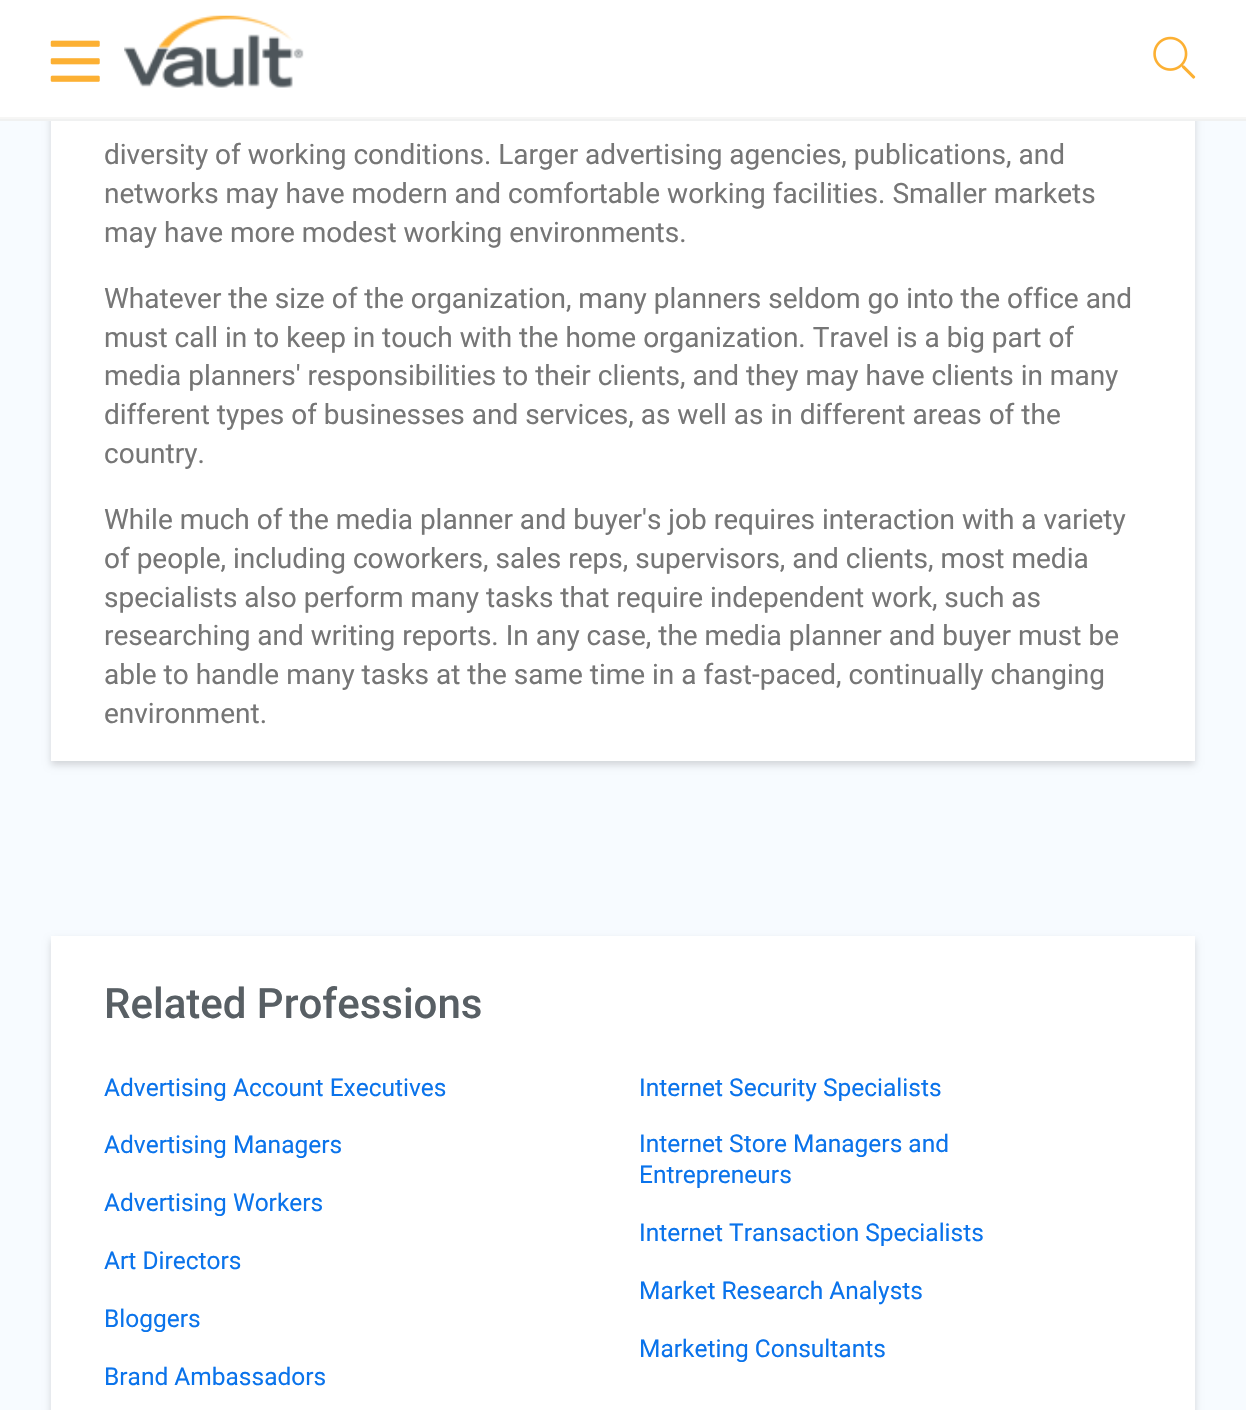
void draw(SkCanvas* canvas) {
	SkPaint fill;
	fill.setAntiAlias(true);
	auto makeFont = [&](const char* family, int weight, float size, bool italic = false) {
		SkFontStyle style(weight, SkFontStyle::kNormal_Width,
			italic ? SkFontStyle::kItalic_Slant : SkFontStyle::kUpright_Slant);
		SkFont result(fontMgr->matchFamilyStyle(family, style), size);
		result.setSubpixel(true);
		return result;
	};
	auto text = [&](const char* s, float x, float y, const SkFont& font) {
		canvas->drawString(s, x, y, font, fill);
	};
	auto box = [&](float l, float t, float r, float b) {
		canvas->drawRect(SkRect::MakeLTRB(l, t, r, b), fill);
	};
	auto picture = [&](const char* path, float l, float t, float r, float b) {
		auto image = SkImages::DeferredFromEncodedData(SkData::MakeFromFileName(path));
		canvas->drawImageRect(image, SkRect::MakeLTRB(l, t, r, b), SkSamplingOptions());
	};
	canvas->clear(0xFFF7FBFF);
	fill.setColor(0x26000000);
	fill.setMaskFilter(SkMaskFilter::MakeBlur(kNormal_SkBlurStyle, 3.5f));
	canvas->drawRect(SkRect::MakeLTRB(51, -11, 1195, 765), fill);
	fill.setMaskFilter(nullptr);
	fill.setColor(0xFFFFFFFF);
	box(0, 0, 1246, 117);
	fill.setColor(0xFFF0F1F1);
	box(0, 119, 1246, 121);
	fill.setColor(0xFFF6F6F5);
	box(0, 117, 1246, 119);
	picture("image0.png", 50, 40, 100, 82);
	picture("image1.png", 124, 15, 304, 88);
	picture("image2.png", 1153, 36, 1196, 79);
	fill.setColor(0xFFFFFFFF);
	box(51, 121, 1195, 761);
	fill.setColor(0x26000000);
	fill.setMaskFilter(SkMaskFilter::MakeBlur(kNormal_SkBlurStyle, 3.5f));
	canvas->drawRect(SkRect::MakeLTRB(51, 940, 1195, 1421), fill);
	fill.setMaskFilter(nullptr);
	fill.setColor(0xFFFFFFFF);
	box(51, 936, 1195, 1410);
	auto font1 = makeFont("Roboto", 400, 28);
	fill.setColor(0xFF767676);
	text("diversity of working conditions. Larger advertising agencies, publications, and", 104, 164, font1);
	text("networks may have modern and comfortable working facilities. Smaller markets", 104, 203, font1);
	text("may have more modest working environments.", 104, 242, font1);
	text("Whatever the size of the organization, many planners seldom go into the office and", 104, 308, font1);
	text("must call in to keep in touch with the home organization. Travel is a big part of", 104, 347, font1);
	text("media planners' responsibilities to their clients, and they may have clients in many", 104, 385, font1);
	text("different types of businesses and services, as well as in different areas of the", 104, 424, font1);
	text("country.", 104, 463, font1);
	text("While much of the media planner and buyer's job requires interaction with a variety", 104, 529, font1);
	text("of people, including coworkers, sales reps, supervisors, and clients, most media", 104, 568, font1);
	text("specialists also perform many tasks that require independent work, such as", 104, 607, font1);
	text("researching and writing reports. In any case, the media planner and buyer must be", 104, 645, font1);
	text("able to handle many tasks at the same time in a fast-paced, continually changing", 104, 684, font1);
	text("environment.", 104, 723, font1);
	auto font2 = makeFont("Roboto", 500, 42);
	fill.setColor(0xFF585F64);
	text("Related Professions", 104, 1018, font2);
	auto font3 = makeFont("Roboto", 400, 24.5f);
	fill.setColor(0xFF0A73EB);
	text("Advertising Account Executives", 104, 1096, font3);
	text("Internet Security Specialists", 639, 1096, font3);
	text("Advertising Managers", 104, 1153, font3);
	text("Internet Store Managers and", 639, 1152, font3);
	text("Entrepreneurs", 639, 1183, font3);
	text("Advertising Workers", 104, 1211, font3);
	text("Internet Transaction Specialists", 639, 1241, font3);
	text("Art Directors", 104, 1269, font3);
	text("Market Research Analysts", 639, 1299, font3);
	text("Bloggers", 104, 1327, font3);
	text("Marketing Consultants", 639, 1357, font3);
	text("Brand Ambassadors", 104, 1385, font3);
}
